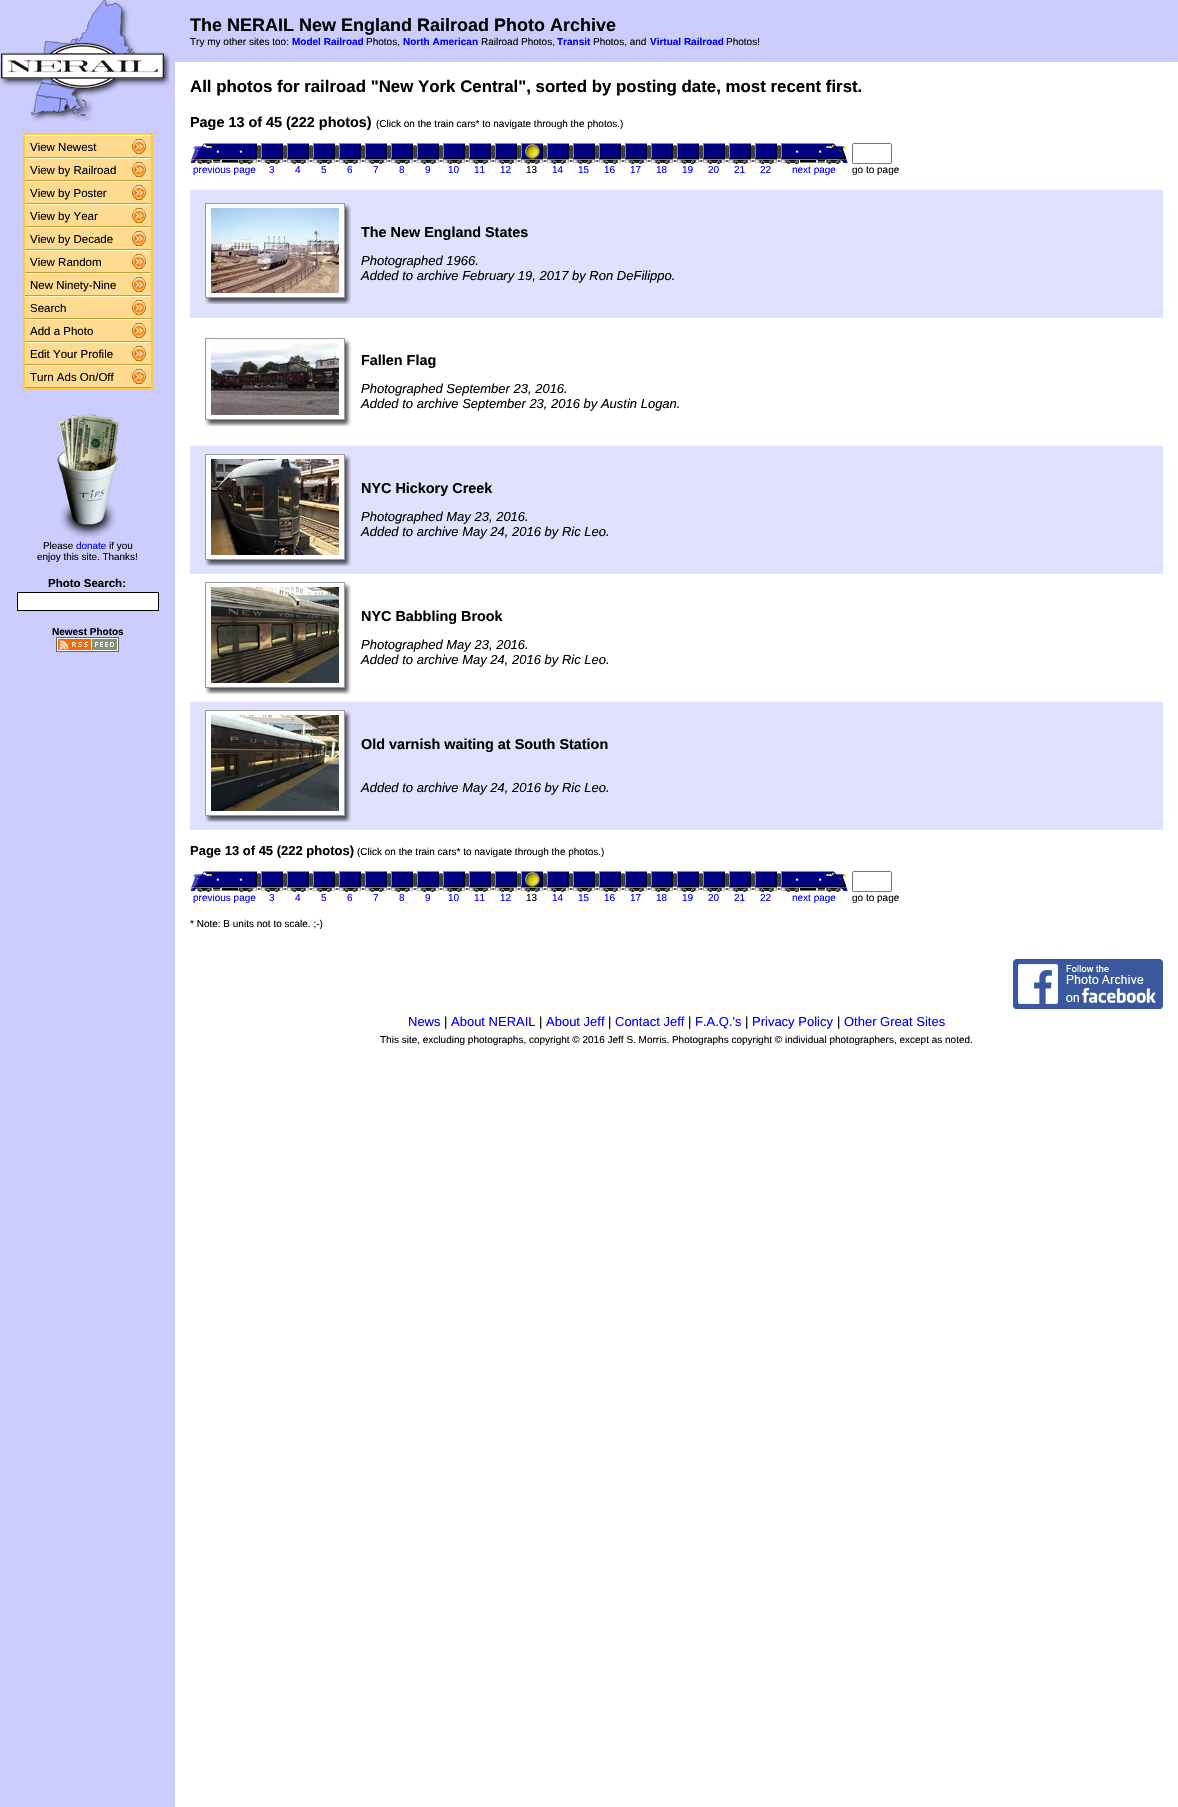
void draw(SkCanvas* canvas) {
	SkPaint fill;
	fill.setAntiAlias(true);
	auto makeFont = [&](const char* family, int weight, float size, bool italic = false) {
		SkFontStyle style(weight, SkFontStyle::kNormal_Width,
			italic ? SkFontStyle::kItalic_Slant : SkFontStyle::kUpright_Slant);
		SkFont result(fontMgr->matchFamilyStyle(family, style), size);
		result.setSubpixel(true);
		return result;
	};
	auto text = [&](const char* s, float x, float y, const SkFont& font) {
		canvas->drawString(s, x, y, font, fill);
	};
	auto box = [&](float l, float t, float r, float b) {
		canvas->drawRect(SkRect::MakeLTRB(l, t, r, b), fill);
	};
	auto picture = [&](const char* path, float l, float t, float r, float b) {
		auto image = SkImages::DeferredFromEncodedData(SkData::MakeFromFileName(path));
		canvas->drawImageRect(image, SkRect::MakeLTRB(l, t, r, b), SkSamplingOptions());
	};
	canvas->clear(0xFFFFFFFF);
	fill.setColor(0xFFCCCCFF);
	box(0, 0, 175, 1807);
	picture("image0.png", 0, 0, 170, 123);
	fill.setColor(0xFFFFDB91);
	box(25, 136, 151, 387);
	fill.setStyle(SkPaint::kStroke_Style);
	fill.setStrokeWidth(2);
	fill.setColor(0xFFFFCC33);
	canvas->drawRect(SkRect::MakeLTRB(24, 134, 152, 389), fill);
	fill.setStyle(SkPaint::kFill_Style);
	fill.setColor(0xFFFFFFCC);
	box(25, 135, 151, 136);
	fill.setColor(0xFFCC9933);
	box(25, 157, 151, 158);
	picture("image1.png", 132, 139, 146, 154);
	fill.setColor(0xFFFFFFCC);
	box(25, 158, 151, 159);
	fill.setColor(0xFFCC9933);
	box(25, 180, 151, 181);
	picture("image1.png", 132, 162, 146, 177);
	fill.setColor(0xFFFFFFCC);
	box(25, 181, 151, 182);
	fill.setColor(0xFFCC9933);
	box(25, 203, 151, 204);
	picture("image1.png", 132, 185, 146, 200);
	fill.setColor(0xFFFFFFCC);
	box(25, 204, 151, 205);
	fill.setColor(0xFFCC9933);
	box(25, 226, 151, 227);
	picture("image1.png", 132, 208, 146, 223);
	fill.setColor(0xFFFFFFCC);
	box(25, 227, 151, 228);
	fill.setColor(0xFFCC9933);
	box(25, 249, 151, 250);
	picture("image1.png", 132, 231, 146, 246);
	fill.setColor(0xFFFFFFCC);
	box(25, 250, 151, 251);
	fill.setColor(0xFFCC9933);
	box(25, 272, 151, 273);
	picture("image1.png", 132, 254, 146, 269);
	fill.setColor(0xFFFFFFCC);
	box(25, 273, 151, 274);
	fill.setColor(0xFFCC9933);
	box(25, 295, 151, 296);
	picture("image1.png", 132, 277, 146, 292);
	fill.setColor(0xFFFFFFCC);
	box(25, 296, 151, 297);
	fill.setColor(0xFFCC9933);
	box(25, 318, 151, 319);
	picture("image1.png", 132, 300, 146, 315);
	fill.setColor(0xFFFFFFCC);
	box(25, 319, 151, 320);
	fill.setColor(0xFFCC9933);
	box(25, 341, 151, 342);
	picture("image1.png", 132, 323, 146, 338);
	fill.setColor(0xFFFFFFCC);
	box(25, 342, 151, 343);
	fill.setColor(0xFFCC9933);
	box(25, 364, 151, 365);
	picture("image1.png", 132, 346, 146, 361);
	fill.setColor(0xFFFFFFCC);
	box(25, 365, 151, 366);
	fill.setColor(0xFFCC9933);
	box(25, 387, 151, 388);
	picture("image1.png", 132, 369, 146, 384);
	picture("image2.png", 57, 413, 120, 538);
	fill.setColor(0xFFFFFFFF);
	canvas->drawRect(SkRect::MakeLTRB(17.5f, 592.5f, 158.5f, 610.5f), fill);
	fill.setStyle(SkPaint::kStroke_Style);
	fill.setStrokeWidth(1);
	fill.setColor(0xFF000000);
	canvas->drawRect(SkRect::MakeLTRB(17.5f, 592.5f, 158.5f, 610.5f), fill);
	picture("image3.png", 56, 637, 119, 652);
	fill.setStyle(SkPaint::kFill_Style);
	fill.setColor(0xFFCCCCFF);
	box(175, 0, 1178, 62);
	picture("image4.png", 190, 143, 259, 164);
	picture("image5.png", 259, 143, 285, 164);
	picture("image5.png", 285, 143, 311, 164);
	picture("image5.png", 311, 143, 337, 164);
	picture("image5.png", 337, 143, 363, 164);
	picture("image5.png", 363, 143, 389, 164);
	picture("image5.png", 389, 143, 415, 164);
	picture("image5.png", 415, 143, 441, 164);
	picture("image5.png", 441, 143, 467, 164);
	picture("image5.png", 467, 143, 493, 164);
	picture("image5.png", 493, 143, 519, 164);
	picture("image6.png", 519, 143, 545, 164);
	picture("image5.png", 545, 143, 571, 164);
	picture("image5.png", 571, 143, 597, 164);
	picture("image5.png", 597, 143, 623, 164);
	picture("image5.png", 623, 143, 649, 164);
	picture("image5.png", 649, 143, 675, 164);
	picture("image5.png", 675, 143, 701, 164);
	picture("image5.png", 701, 143, 727, 164);
	picture("image5.png", 727, 143, 753, 164);
	picture("image5.png", 753, 143, 779, 164);
	picture("image7.png", 779, 143, 848, 164);
	fill.setStyle(SkPaint::kStroke_Style);
	fill.setColor(0xFF767676);
	canvas->drawRoundRect(SkRect::MakeLTRB(852.5f, 143.5f, 891.5f, 163.5f), 1.5f, 1.5f, fill);
	fill.setStyle(SkPaint::kFill_Style);
	fill.setColor(0xFFE0E0FF);
	box(190, 190, 1163, 318);
	fill.setColor(0xFFFFFFFF);
	canvas->drawRect(SkRect::MakeLTRB(205.5f, 203.5f, 344.5f, 297.5f), fill);
	fill.setStyle(SkPaint::kStroke_Style);
	fill.setColor(0xFF9A9A9A);
	canvas->drawRect(SkRect::MakeLTRB(205.5f, 203.5f, 344.5f, 297.5f), fill);
	picture("image8.png", 211, 208, 339, 293);
	picture("image9.png", 345, 203, 351, 298);
	picture("image10.png", 205, 298, 345, 304);
	picture("image11.png", 345, 298, 351, 304);
	canvas->drawRect(SkRect::MakeLTRB(205.5f, 338.5f, 344.5f, 419.5f), fill);
	picture("image12.png", 211, 343, 339, 415);
	picture("image13.png", 345, 338, 351, 420);
	picture("image14.png", 205, 420, 345, 426);
	picture("image15.png", 345, 420, 351, 426);
	fill.setStyle(SkPaint::kFill_Style);
	fill.setColor(0xFFE0E0FF);
	box(190, 446, 1163, 574);
	fill.setColor(0xFFFFFFFF);
	canvas->drawRect(SkRect::MakeLTRB(205.5f, 454.5f, 344.5f, 559.5f), fill);
	fill.setStyle(SkPaint::kStroke_Style);
	fill.setColor(0xFF9A9A9A);
	canvas->drawRect(SkRect::MakeLTRB(205.5f, 454.5f, 344.5f, 559.5f), fill);
	picture("image16.png", 211, 459, 339, 555);
	picture("image17.png", 345, 454, 351, 560);
	picture("image10.png", 205, 560, 345, 566);
	picture("image11.png", 345, 560, 351, 566);
	canvas->drawRect(SkRect::MakeLTRB(205.5f, 582.5f, 344.5f, 687.5f), fill);
	picture("image18.png", 211, 587, 339, 683);
	picture("image19.png", 345, 582, 351, 688);
	picture("image14.png", 205, 688, 345, 694);
	picture("image15.png", 345, 688, 351, 694);
	fill.setStyle(SkPaint::kFill_Style);
	fill.setColor(0xFFE0E0FF);
	box(190, 702, 1163, 830);
	fill.setColor(0xFFFFFFFF);
	canvas->drawRect(SkRect::MakeLTRB(205.5f, 710.5f, 344.5f, 815.5f), fill);
	fill.setStyle(SkPaint::kStroke_Style);
	fill.setColor(0xFF9A9A9A);
	canvas->drawRect(SkRect::MakeLTRB(205.5f, 710.5f, 344.5f, 815.5f), fill);
	picture("image20.png", 211, 715, 339, 811);
	picture("image17.png", 345, 710, 351, 816);
	picture("image10.png", 205, 816, 345, 822);
	picture("image11.png", 345, 816, 351, 822);
	picture("image4.png", 190, 871, 259, 892);
	picture("image5.png", 259, 871, 285, 892);
	picture("image5.png", 285, 871, 311, 892);
	picture("image5.png", 311, 871, 337, 892);
	picture("image5.png", 337, 871, 363, 892);
	picture("image5.png", 363, 871, 389, 892);
	picture("image5.png", 389, 871, 415, 892);
	picture("image5.png", 415, 871, 441, 892);
	picture("image5.png", 441, 871, 467, 892);
	picture("image5.png", 467, 871, 493, 892);
	picture("image5.png", 493, 871, 519, 892);
	picture("image6.png", 519, 871, 545, 892);
	picture("image5.png", 545, 871, 571, 892);
	picture("image5.png", 571, 871, 597, 892);
	picture("image5.png", 597, 871, 623, 892);
	picture("image5.png", 623, 871, 649, 892);
	picture("image5.png", 649, 871, 675, 892);
	picture("image5.png", 675, 871, 701, 892);
	picture("image5.png", 701, 871, 727, 892);
	picture("image5.png", 727, 871, 753, 892);
	picture("image5.png", 753, 871, 779, 892);
	picture("image7.png", 779, 871, 848, 892);
	fill.setColor(0xFF767676);
	canvas->drawRoundRect(SkRect::MakeLTRB(852.5f, 871.5f, 891.5f, 891.5f), 1.5f, 1.5f, fill);
	picture("image21.png", 1013, 959, 1163, 1009);
	auto font1 = makeFont("Liberation Sans", 400, 11.5f);
	fill.setStyle(SkPaint::kFill_Style);
	fill.setColor(0xFF000000);
	text("View Newest", 30, 151, font1);
	text("View by Railroad", 30, 174, font1);
	text("View by Poster", 30, 197, font1);
	text("View by Year", 30, 220, font1);
	text("View by Decade", 30, 243, font1);
	text("View Random", 30, 266, font1);
	text("New Ninety-Nine", 30, 289, font1);
	text("Search", 30, 312, font1);
	text("Add a Photo", 30, 335, font1);
	text("Edit Your Profile", 30, 358, font1);
	text("Turn Ads On/Off", 30, 381, font1);
	auto font2 = makeFont("Liberation Sans", 400, 9.9f);
	text("Please", 43, 549, font2);
	fill.setColor(0xFF0000FF);
	text("donate", 76, 549, font2);
	fill.setColor(0xFF000000);
	text("if you", 109, 549, font2);
	text("enjoy this site. Thanks!", 37, 560, font2);
	auto font3 = makeFont("Liberation Sans", 700, 11.5f);
	text("Photo Search:", 48, 587, font3);
	auto font4 = makeFont("Liberation Sans", 700, 10);
	text("Newest Photos", 52, 635, font4);
	auto font5 = makeFont("Liberation Sans", 700, 18);
	text("The NERAIL New England Railroad Photo Archive", 190, 31, font5);
	auto font6 = makeFont("Liberation Sans", 400, 10);
	text("Try my other sites too:", 190, 45, font6);
	fill.setColor(0xFF0000FF);
	text("Model Railroad", 292, 45, font4);
	fill.setColor(0xFF000000);
	text("Photos,", 366, 45, font6);
	fill.setColor(0xFF0000FF);
	text("North American", 403, 45, font4);
	fill.setColor(0xFF000000);
	text("Railroad Photos,", 481, 45, font6);
	fill.setColor(0xFF0000FF);
	text("Transit", 557, 45, font4);
	fill.setColor(0xFF000000);
	text("Photos, and", 593, 45, font6);
	fill.setColor(0xFF0000FF);
	text("Virtual Railroad", 650, 45, font4);
	fill.setColor(0xFF000000);
	text("Photos!", 726, 45, font6);
	auto font7 = makeFont("Liberation Sans", 700, 16.85f);
	text("All photos for railroad \"New York Central\", sorted by posting date, most recent first.", 190, 92, font7);
	auto font8 = makeFont("Liberation Sans", 700, 14.4f);
	text("Page 13 of 45 (222 photos)", 190, 127, font8);
	text("(Click on the train cars* to navigate through the photos.)", 376, 127, font6);
	fill.setColor(0xFF0000FF);
	text("previous page", 193, 173, font6);
	text("3", 269, 173, font6);
	text("4", 295, 173, font6);
	text("5", 321, 173, font6);
	text("6", 347, 173, font6);
	text("7", 373, 173, font6);
	text("8", 399, 173, font6);
	text("9", 425, 173, font6);
	text("10", 448, 173, font6);
	text("11", 474, 173, font6);
	text("12", 500, 173, font6);
	fill.setColor(0xFF000000);
	text("13", 526, 173, font6);
	fill.setColor(0xFF0000FF);
	text("14", 552, 173, font6);
	text("15", 578, 173, font6);
	text("16", 604, 173, font6);
	text("17", 630, 173, font6);
	text("18", 656, 173, font6);
	text("19", 682, 173, font6);
	text("20", 708, 173, font6);
	text("21", 734, 173, font6);
	text("22", 760, 173, font6);
	text("next page", 792, 173, font6);
	fill.setColor(0xFF000000);
	text("go to page", 852, 173, font6);
	text("The New England States", 361, 237, font8);
	auto font9 = makeFont("Liberation Sans", 400, 13, true);
	text("Photographed 1966.", 361, 265, font9);
	text("Added to archive February 19, 2017 by Ron DeFilippo.", 361, 280, font9);
	text("Fallen Flag", 361, 365, font8);
	text("Photographed September 23, 2016.", 361, 393, font9);
	text("Added to archive September 23, 2016 by Austin Logan.", 361, 408, font9);
	text("NYC Hickory Creek", 361, 493, font8);
	text("Photographed May 23, 2016.", 361, 521, font9);
	text("Added to archive May 24, 2016 by Ric Leo.", 361, 536, font9);
	text("NYC Babbling Brook", 361, 621, font8);
	text("Photographed May 23, 2016.", 361, 649, font9);
	text("Added to archive May 24, 2016 by Ric Leo.", 361, 664, font9);
	text("Old varnish waiting at South Station", 361, 749, font8);
	text("Added to archive May 24, 2016 by Ric Leo.", 361, 792, font9);
	auto font10 = makeFont("Liberation Sans", 700, 13);
	text("Page 13 of 45 (222 photos)", 190, 855, font10);
	text("(Click on the train cars* to navigate through the photos.)", 357, 855, font6);
	fill.setColor(0xFF0000FF);
	text("previous page", 193, 901, font6);
	text("3", 269, 901, font6);
	text("4", 295, 901, font6);
	text("5", 321, 901, font6);
	text("6", 347, 901, font6);
	text("7", 373, 901, font6);
	text("8", 399, 901, font6);
	text("9", 425, 901, font6);
	text("10", 448, 901, font6);
	text("11", 474, 901, font6);
	text("12", 500, 901, font6);
	fill.setColor(0xFF000000);
	text("13", 526, 901, font6);
	fill.setColor(0xFF0000FF);
	text("14", 552, 901, font6);
	text("15", 578, 901, font6);
	text("16", 604, 901, font6);
	text("17", 630, 901, font6);
	text("18", 656, 901, font6);
	text("19", 682, 901, font6);
	text("20", 708, 901, font6);
	text("21", 734, 901, font6);
	text("22", 760, 901, font6);
	text("next page", 792, 901, font6);
	fill.setColor(0xFF000000);
	text("go to page", 852, 901, font6);
	text("* Note: B units not to scale. ;-)", 190, 927, font6);
	auto font11 = makeFont("Liberation Sans", 400, 13);
	fill.setColor(0xFF0000FF);
	text("News", 408, 1026, font11);
	fill.setColor(0xFF000000);
	text("|", 444, 1026, font11);
	fill.setColor(0xFF0000FF);
	text("About NERAIL", 451, 1026, font11);
	fill.setColor(0xFF000000);
	text("|", 539, 1026, font11);
	fill.setColor(0xFF0000FF);
	text("About Jeff", 546, 1026, font11);
	fill.setColor(0xFF000000);
	text("|", 608, 1026, font11);
	fill.setColor(0xFF0000FF);
	text("Contact Jeff", 615, 1026, font11);
	fill.setColor(0xFF000000);
	text("|", 688, 1026, font11);
	fill.setColor(0xFF0000FF);
	text("F.A.Q.'s", 695, 1026, font11);
	fill.setColor(0xFF000000);
	text("|", 745, 1026, font11);
	fill.setColor(0xFF0000FF);
	text("Privacy Policy", 752, 1026, font11);
	fill.setColor(0xFF000000);
	text("|", 837, 1026, font11);
	fill.setColor(0xFF0000FF);
	text("Other Great Sites", 844, 1026, font11);
	fill.setColor(0xFF000000);
	text("This site, excluding photographs, copyright © 2016 Jeff S. Morris. Photographs copyright © individual photographers, except as noted.", 380, 1043, font6);
}
